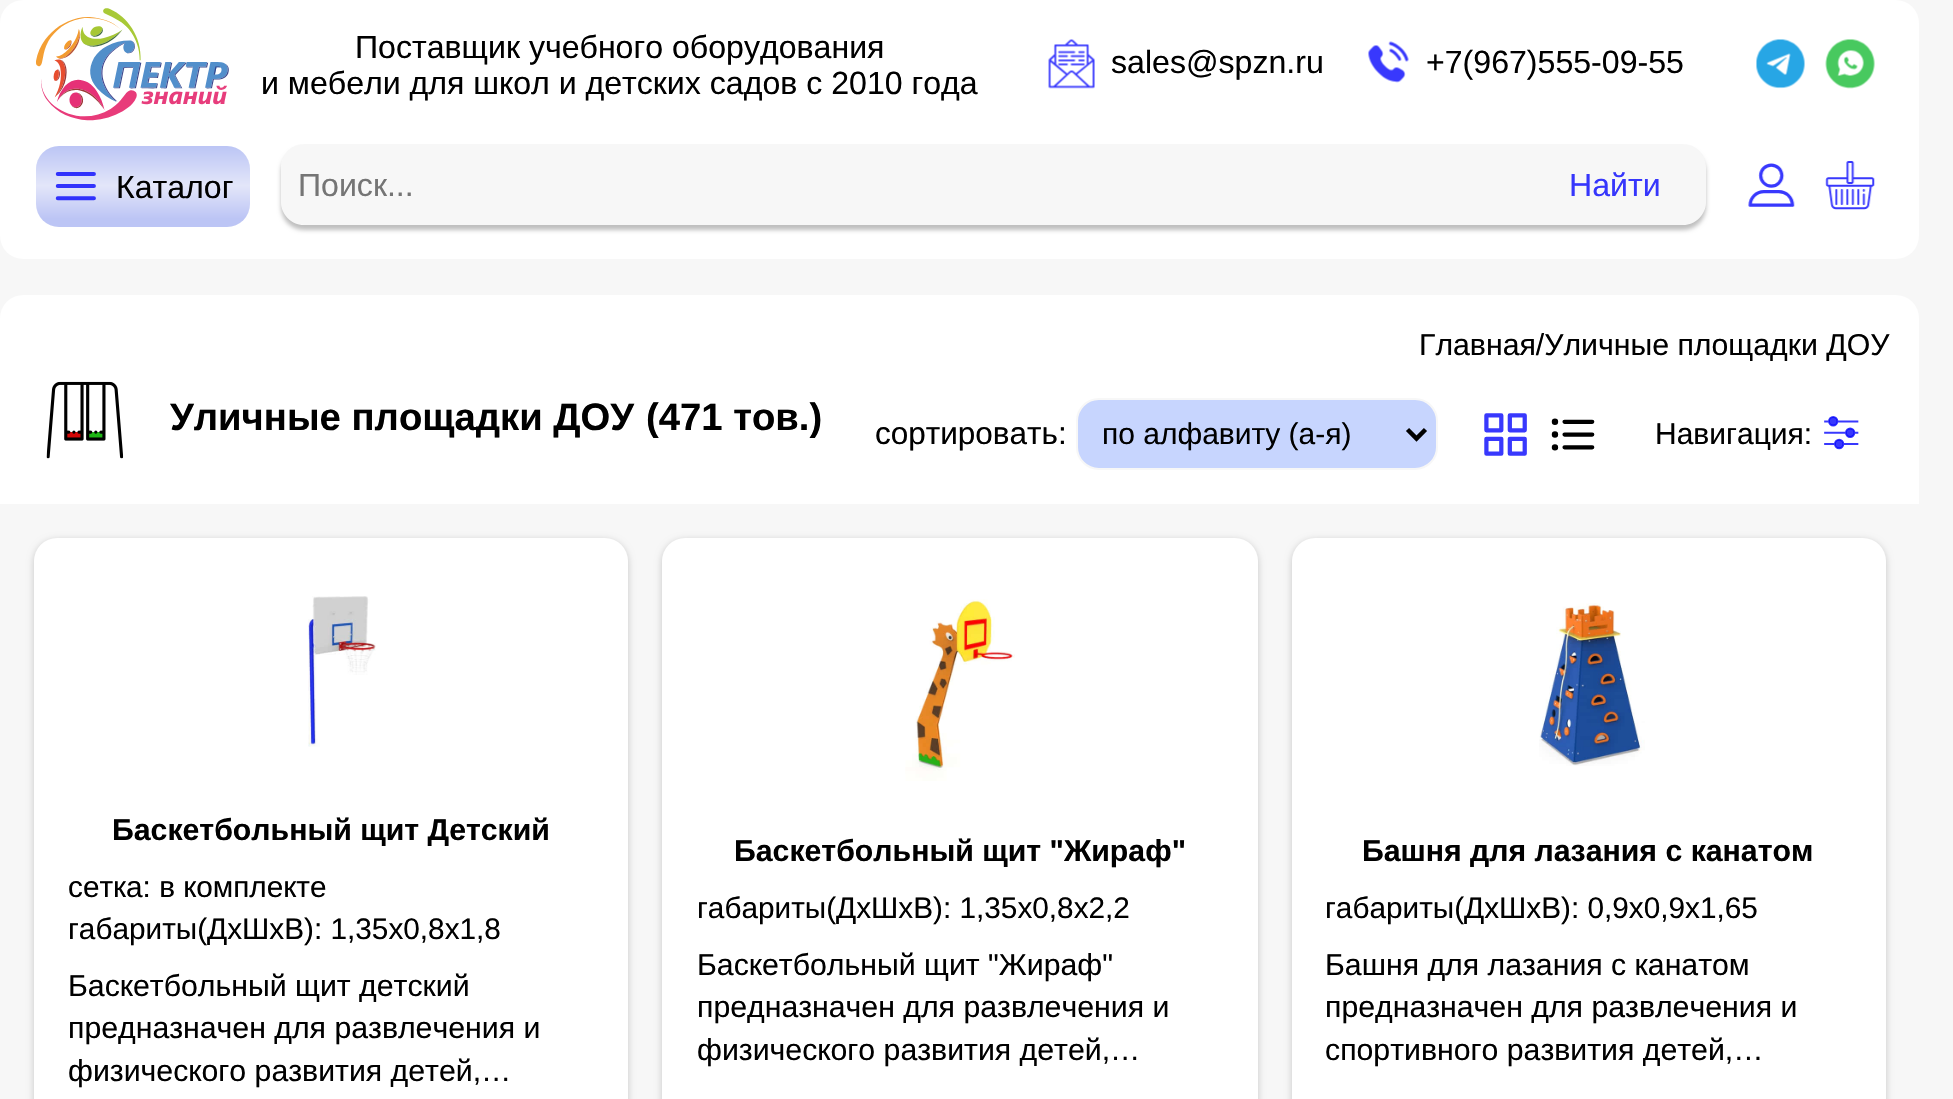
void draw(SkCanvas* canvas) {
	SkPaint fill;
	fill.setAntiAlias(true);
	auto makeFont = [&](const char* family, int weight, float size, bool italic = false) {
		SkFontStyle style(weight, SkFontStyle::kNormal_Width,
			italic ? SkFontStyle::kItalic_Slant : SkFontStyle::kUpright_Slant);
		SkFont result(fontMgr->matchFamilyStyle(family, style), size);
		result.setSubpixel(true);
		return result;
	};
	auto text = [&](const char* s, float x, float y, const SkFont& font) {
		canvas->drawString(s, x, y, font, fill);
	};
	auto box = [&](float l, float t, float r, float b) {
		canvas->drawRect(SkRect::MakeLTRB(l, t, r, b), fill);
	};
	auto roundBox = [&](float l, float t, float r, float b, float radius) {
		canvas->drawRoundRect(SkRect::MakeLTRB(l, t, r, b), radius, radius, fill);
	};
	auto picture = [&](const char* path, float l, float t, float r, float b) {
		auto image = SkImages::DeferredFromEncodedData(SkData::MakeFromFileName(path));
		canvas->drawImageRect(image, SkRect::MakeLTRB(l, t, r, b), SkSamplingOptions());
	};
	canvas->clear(0xFFF7F7F7);
	fill.setColor(0xFFFFFFFF);
	roundBox(0, 0, 1919, 259, 23);
	picture("image0.png", 36, 8, 229, 121);
	picture("image1.png", 1048, 39, 1095, 89);
	picture("image2.png", 1368, 41, 1409, 83);
	picture("image3.png", 1756, 39, 1805, 89);
	picture("image4.png", 1825, 39, 1875, 89);
	{
		const SkColor colors[] = {0xFFBCC5F5, 0xFFE3E6F9, 0xFFBCC5F5};
		const float stops[] = {0, 0.49f, 0.9f};
		const SkPoint ends[] = {{143, 146}, {143, 227}};
		fill.setShader(SkGradientShader::MakeLinear(ends, colors, stops, 3, SkTileMode::kClamp));
		fill.setAlpha(255);
	}
	roundBox(36, 146, 250, 227, 23);
	picture("image5.png", 55, 172, 96, 201);
	canvas->save();
	canvas->clipPath(SkPathBuilder(SkPathFillType::kEvenOdd).moveTo(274, 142).lineTo(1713, 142).lineTo(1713, 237).lineTo(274, 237).close().moveTo(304, 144).lineTo(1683, 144).cubicTo(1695.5f, 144, 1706, 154.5f, 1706, 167).lineTo(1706, 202).cubicTo(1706, 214.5f, 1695.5f, 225, 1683, 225).lineTo(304, 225).cubicTo(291.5f, 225, 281, 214.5f, 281, 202).lineTo(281, 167).cubicTo(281, 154.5f, 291.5f, 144, 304, 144).close().detach(), true);
	fill.setShader(nullptr);
	fill.setColor(0x40000000);
	fill.setMaskFilter(SkMaskFilter::MakeBlur(kNormal_SkBlurStyle, 2));
	canvas->drawRoundRect(SkRect::MakeLTRB(281, 149, 1706, 230), 23, 23, fill);
	fill.setMaskFilter(nullptr);
	canvas->restore();
	fill.setColor(0x38D9D9D9);
	roundBox(281, 144, 1706, 225, 23);
	picture("image6.png", 1748, 163, 1795, 207);
	picture("image7.png", 1825, 161, 1875, 210);
	fill.setColor(0xFFFFFFFF);
	roundBox(0, 295, 1919, 538, 23);
	picture("image8.png", 46, 381, 124, 459);
	fill.setColor(0xFFC7D5FE);
	canvas->drawRoundRect(SkRect::MakeLTRB(1077, 399, 1437, 469), 22, 22, fill);
	fill.setStyle(SkPaint::kStroke_Style);
	fill.setStrokeWidth(2);
	fill.setColor(0xFFF7F7F7);
	canvas->drawRoundRect(SkRect::MakeLTRB(1077, 399, 1437, 469), 22, 22, fill);
	fill.setStrokeWidth(4.5f);
	fill.setColor(0xFF000000);
	canvas->drawPath(SkPathBuilder().moveTo(1407.5f, 429.5f).lineTo(1416.5f, 438.5f).lineTo(1425.5f, 429.5f).detach(), fill);
	picture("image9.png", 1484, 413, 1527, 456);
	picture("image10.png", 1551, 418, 1595, 451);
	picture("image11.png", 1824, 416, 1859, 450);
	fill.setStyle(SkPaint::kFill_Style);
	fill.setColor(0xFFF7F7F7);
	box(0, 504, 1919, 538);
	fill.setColor(0x33000000);
	fill.setMaskFilter(SkMaskFilter::MakeBlur(kNormal_SkBlurStyle, 3.5f));
	canvas->drawRoundRect(SkRect::MakeLTRB(34, 540, 628, 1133), 23, 23, fill);
	fill.setMaskFilter(nullptr);
	fill.setColor(0xFFFFFFFF);
	roundBox(34, 538, 628, 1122, 23);
	picture("image12.png", 308, 596, 376, 747);
	fill.setColor(0x33000000);
	fill.setMaskFilter(SkMaskFilter::MakeBlur(kNormal_SkBlurStyle, 3.5f));
	canvas->drawRoundRect(SkRect::MakeLTRB(662, 540, 1258, 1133), 23, 23, fill);
	fill.setMaskFilter(nullptr);
	fill.setColor(0xFFFFFFFF);
	roundBox(662, 538, 1258, 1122, 23);
	picture("image13.png", 905, 599, 1015, 781);
	fill.setColor(0x33000000);
	fill.setMaskFilter(SkMaskFilter::MakeBlur(kNormal_SkBlurStyle, 3.5f));
	canvas->drawRoundRect(SkRect::MakeLTRB(1292, 540, 1886, 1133), 23, 23, fill);
	fill.setMaskFilter(nullptr);
	fill.setColor(0xFFFFFFFF);
	roundBox(1292, 538, 1886, 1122, 23);
	picture("image14.png", 1539, 603, 1645, 766);
	auto font1 = makeFont("Liberation Sans", 400, 32.1f);
	fill.setColor(0xFF000000);
	text("Поставщик учебного оборудования", 355, 58, font1);
	text("и мебели для школ и детских садов с 2010 года", 261, 94, font1);
	text("sales@spzn.ru", 1111, 73, font1);
	text("+7(967)555-09-55", 1426, 73, font1);
	text("Каталог", 116, 198, font1);
	fill.setColor(0xFF757575);
	text("Поиск...", 298, 196, font1);
	fill.setColor(0xFF3636FC);
	text("Найти", 1569, 196, font1);
	auto font2 = makeFont("Liberation Sans", 400, 30.25f);
	fill.setColor(0xFF000000);
	text("Главная/Уличные площадки ДОУ", 1419, 355, font2);
	auto font3 = makeFont("Liberation Sans", 700, 38.25f);
	text("Уличные площадки ДОУ", 170, 430, font3);
	text("(471 тов.)", 646, 430, font3);
	auto font4 = makeFont("Liberation Sans", 400, 31.5f);
	text("сортировать:", 875, 444, font4);
	auto font5 = makeFont("Liberation Sans", 400, 30);
	text("по алфавиту (а-я)", 1102, 444, font5);
	text("Навигация:", 1655, 444, font5);
	auto font6 = makeFont("Liberation Sans", 700, 30.25f);
	text("Баскетбольный щит Детский", 112, 840, font6);
	auto font7 = makeFont("Liberation Sans", 400, 29.75f);
	text("сетка: в комплекте", 68, 897, font7);
	text("габариты(ДхШхВ): 1,35х0,8х1,8", 68, 939, font7);
	text("Баскетбольный щит детский", 68, 996, font2);
	text("предназначен для развлечения и", 68, 1038, font2);
	text("физического развития детей,…", 68, 1081, font2);
	text("Баскетбольный щит \"Жираф\"", 734, 861, font6);
	text("габариты(ДхШхВ): 1,35х0,8х2,2", 697, 918, font7);
	text("Баскетбольный щит \"Жираф\"", 697, 975, font2);
	text("предназначен для развлечения и", 697, 1017, font2);
	canvas->save();
	canvas->clipRect(SkRect::MakeLTRB(698, 945, 1222, 1073));
	text("физического развития детей,…", 697, 1060, font2);
	canvas->restore();
	text("Башня для лазания с канатом", 1362, 861, font6);
	text("габариты(ДхШхВ): 0,9х0,9х1,65", 1325, 918, font7);
	text("Башня для лазания с канатом", 1325, 975, font2);
	text("предназначен для развлечения и", 1325, 1017, font2);
	text("спортивного развития детей,…", 1325, 1060, font2);
}
